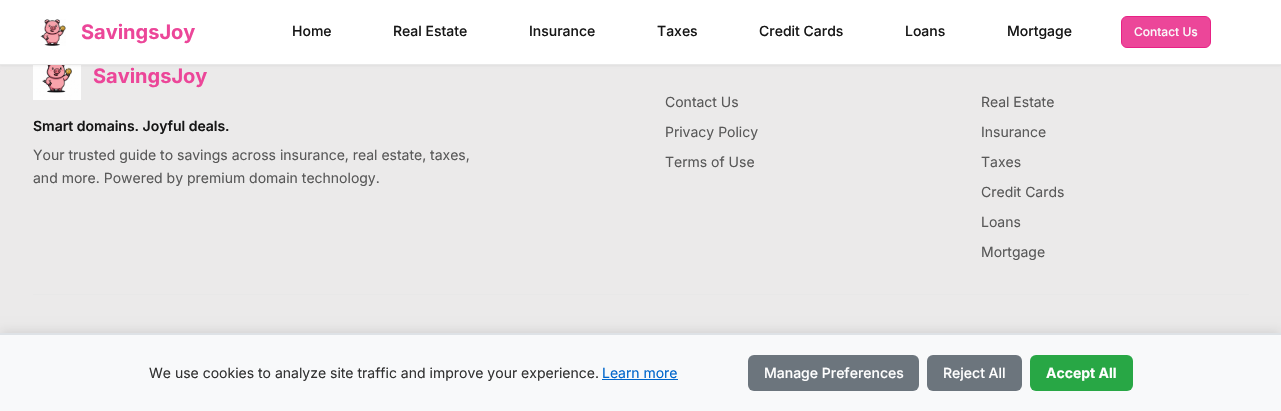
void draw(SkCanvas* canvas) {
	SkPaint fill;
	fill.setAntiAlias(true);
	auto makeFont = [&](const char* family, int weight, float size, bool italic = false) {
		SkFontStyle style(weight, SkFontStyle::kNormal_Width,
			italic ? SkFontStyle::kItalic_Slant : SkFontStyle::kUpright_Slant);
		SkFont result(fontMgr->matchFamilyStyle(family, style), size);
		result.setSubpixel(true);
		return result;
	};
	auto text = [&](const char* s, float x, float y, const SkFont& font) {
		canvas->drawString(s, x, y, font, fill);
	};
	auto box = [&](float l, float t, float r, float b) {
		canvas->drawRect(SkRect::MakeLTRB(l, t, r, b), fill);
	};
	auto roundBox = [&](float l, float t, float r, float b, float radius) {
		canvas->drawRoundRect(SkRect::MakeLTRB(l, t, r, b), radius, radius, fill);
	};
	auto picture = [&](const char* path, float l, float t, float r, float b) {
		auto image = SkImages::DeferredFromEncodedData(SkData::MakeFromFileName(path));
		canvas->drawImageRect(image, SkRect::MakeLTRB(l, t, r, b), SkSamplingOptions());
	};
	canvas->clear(0xFFEBEAEA);
	picture("image1.png", 33, 65, 81, 100);
	fill.setColor(0x0D000000);
	fill.setMaskFilter(SkMaskFilter::MakeBlur(kNormal_SkBlurStyle, 1));
	canvas->drawRect(SkRect::MakeLTRB(0, 1, 1281, 66), fill);
	fill.setMaskFilter(nullptr);
	fill.setColor(0xFFFFFFFF);
	box(0, 0, 1281, 64);
	fill.setColor(0xFFE8E8E8);
	box(0, 64, 1281, 65);
	picture("image0.png", 40, 19, 66, 46);
	fill.setColor(0xFFEC4699);
	canvas->drawRoundRect(SkRect::MakeLTRB(1121.5f, 16.5f, 1210.5f, 47.5f), 5.5f, 5.5f, fill);
	fill.setStyle(SkPaint::kStroke_Style);
	fill.setStrokeWidth(1);
	fill.setColor(0xFFE82185);
	canvas->drawRoundRect(SkRect::MakeLTRB(1121.5f, 16.5f, 1210.5f, 47.5f), 5.5f, 5.5f, fill);
	fill.setStyle(SkPaint::kFill_Style);
	fill.setColor(0xFFE8E8E8);
	box(33, 294, 1249, 295);
	fill.setColor(0x1A000000);
	fill.setMaskFilter(SkMaskFilter::MakeBlur(kNormal_SkBlurStyle, 5));
	canvas->drawRect(SkRect::MakeLTRB(0, 331, 1281, 409), fill);
	fill.setMaskFilter(nullptr);
	fill.setColor(0xFFF8F9FA);
	box(0, 335, 1281, 411);
	fill.setColor(0xFFDEE2E6);
	box(0, 333, 1281, 335);
	fill.setColor(0xFF0066CC);
	box(602, 379, 678, 380);
	fill.setColor(0xFF6C757D);
	roundBox(748, 355, 919, 391, 6);
	roundBox(927, 355, 1022, 391, 6);
	fill.setColor(0xFF28A745);
	roundBox(1030, 355, 1133, 391, 6);
	auto font1 = makeFont("Inter", 700, 20);
	fill.setColor(0xFFEC4699);
	text("SavingsJoy", 81, 39, font1);
	auto font2 = makeFont("Inter", 500, 14);
	fill.setColor(0xFF171717);
	text("Home", 292, 36, font2);
	text("Real Estate", 393, 36, font2);
	text("Insurance", 529, 36, font2);
	text("Taxes", 657, 36, font2);
	text("Credit Cards", 759, 36, font2);
	text("Loans", 905, 36, font2);
	text("Mortgage", 1007, 36, font2);
	auto font3 = makeFont("Inter", 500, 12);
	fill.setColor(0xFFFAF9FA);
	text("Contact Us", 1134, 36, font3);
	fill.setColor(0xFFEC4699);
	text("SavingsJoy", 93, 83, font1);
	auto font4 = makeFont("Inter", 600, 14);
	fill.setColor(0xFF171717);
	text("Smart domains. Joyful deals.", 33, 131, font4);
	auto font5 = makeFont("Inter", 400, 14);
	fill.setColor(0xFF595959);
	text("Your trusted guide to savings across insurance, real estate, taxes,", 33, 160, font5);
	text("and more. Powered by premium domain technology.", 33, 183, font5);
	text("Contact Us", 665, 107, font5);
	text("Privacy Policy", 665, 137, font5);
	text("Terms of Use", 665, 167, font5);
	text("Real Estate", 981, 107, font5);
	text("Insurance", 981, 137, font5);
	text("Taxes", 981, 167, font5);
	text("Credit Cards", 981, 197, font5);
	text("Loans", 981, 227, font5);
	text("Mortgage", 981, 257, font5);
	fill.setColor(0xFF333333);
	text("We use cookies to analyze site traffic and improve your experience.", 149, 378, font5);
	fill.setColor(0xFF0066CC);
	text("Learn more", 602, 378, font5);
	fill.setColor(0xFFFFFFFF);
	text("Manage Preferences", 764, 378, font2);
	text("Reject All", 943, 378, font2);
	auto font6 = makeFont("Inter", 700, 14);
	text("Accept All", 1046, 378, font6);
}
